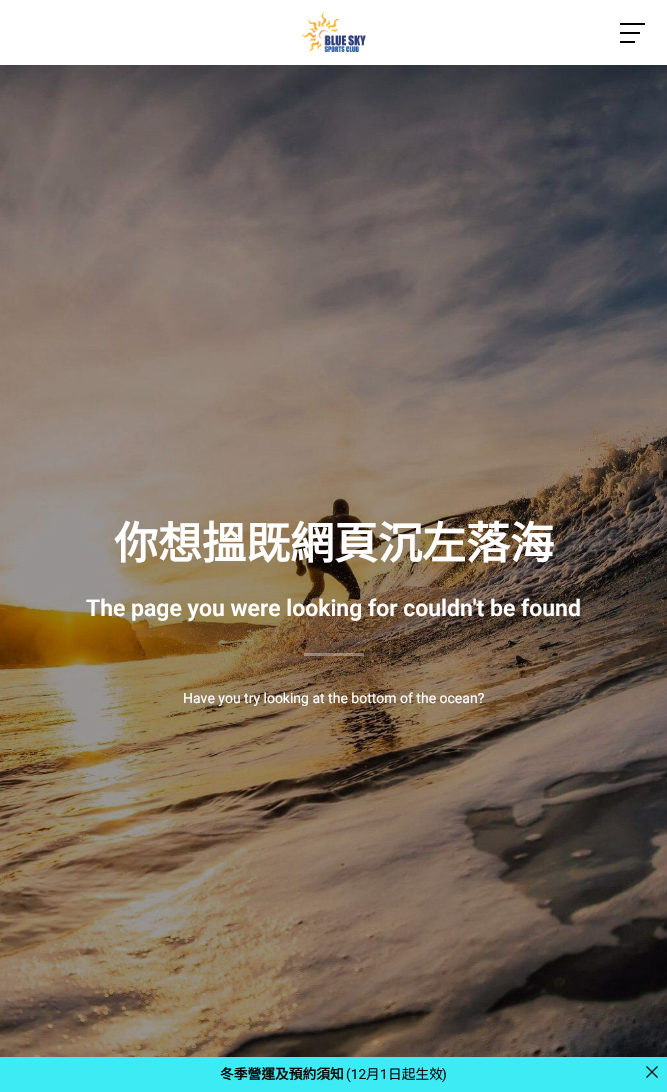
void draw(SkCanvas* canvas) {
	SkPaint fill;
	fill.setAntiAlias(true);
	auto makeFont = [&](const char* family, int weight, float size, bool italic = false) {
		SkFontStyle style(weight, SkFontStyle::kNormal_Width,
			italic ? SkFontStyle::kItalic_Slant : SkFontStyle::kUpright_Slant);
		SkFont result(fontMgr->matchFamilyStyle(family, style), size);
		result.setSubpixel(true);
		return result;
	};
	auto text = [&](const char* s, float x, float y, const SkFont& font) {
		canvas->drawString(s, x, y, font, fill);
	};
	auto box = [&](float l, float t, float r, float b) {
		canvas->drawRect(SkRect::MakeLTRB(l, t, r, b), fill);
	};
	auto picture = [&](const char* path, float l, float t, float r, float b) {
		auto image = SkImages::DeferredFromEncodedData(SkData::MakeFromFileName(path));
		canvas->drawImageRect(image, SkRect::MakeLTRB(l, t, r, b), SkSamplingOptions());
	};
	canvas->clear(0xFFFFFFFF);
	picture("image0.png", 301, 12, 366, 52);
	fill.setColor(0xFF000000);
	box(620, 23, 645, 25);
	box(620, 32, 640, 34);
	box(620, 41, 635, 43);
	picture("image1.png", 0, 65, 667, 1057);
	fill.setColor(0x59FFFFFF);
	box(304, 653, 364, 656);
	fill.setColor(0xFF3DEBF4);
	box(0, 1057, 667, 1092);
	picture("image2.png", 646, 1066, 658, 1078);
	auto font1 = makeFont("Noto Sans CJK HK", 700, 44);
	fill.setColor(0xFFFFFFFF);
	text("你想搵既網頁沉左落海", 114, 559, font1);
	auto font2 = makeFont("Roboto", 600, 23);
	text("The page you were looking for couldn't be found", 86, 616, font2);
	auto font3 = makeFont("Roboto", 400, 14);
	text("Have you try looking at the bottom of the ocean?", 183, 703, font3);
	auto font4 = makeFont("Noto Sans CJK HK", 700, 13.75f);
	fill.setColor(0xFF0A0A0A);
	text("冬季營運及預約須知", 220, 1079, font4);
	auto font5 = makeFont("Roboto", 400, 13.75f);
	text("(12", 346, 1079, font5);
	auto font6 = makeFont("Noto Sans CJK HK", 400, 13.75f);
	text("月", 366, 1079, font6);
	text("1", 380, 1079, font5);
	text("日起生效", 388, 1079, font6);
	text(")", 442, 1079, font5);
}
